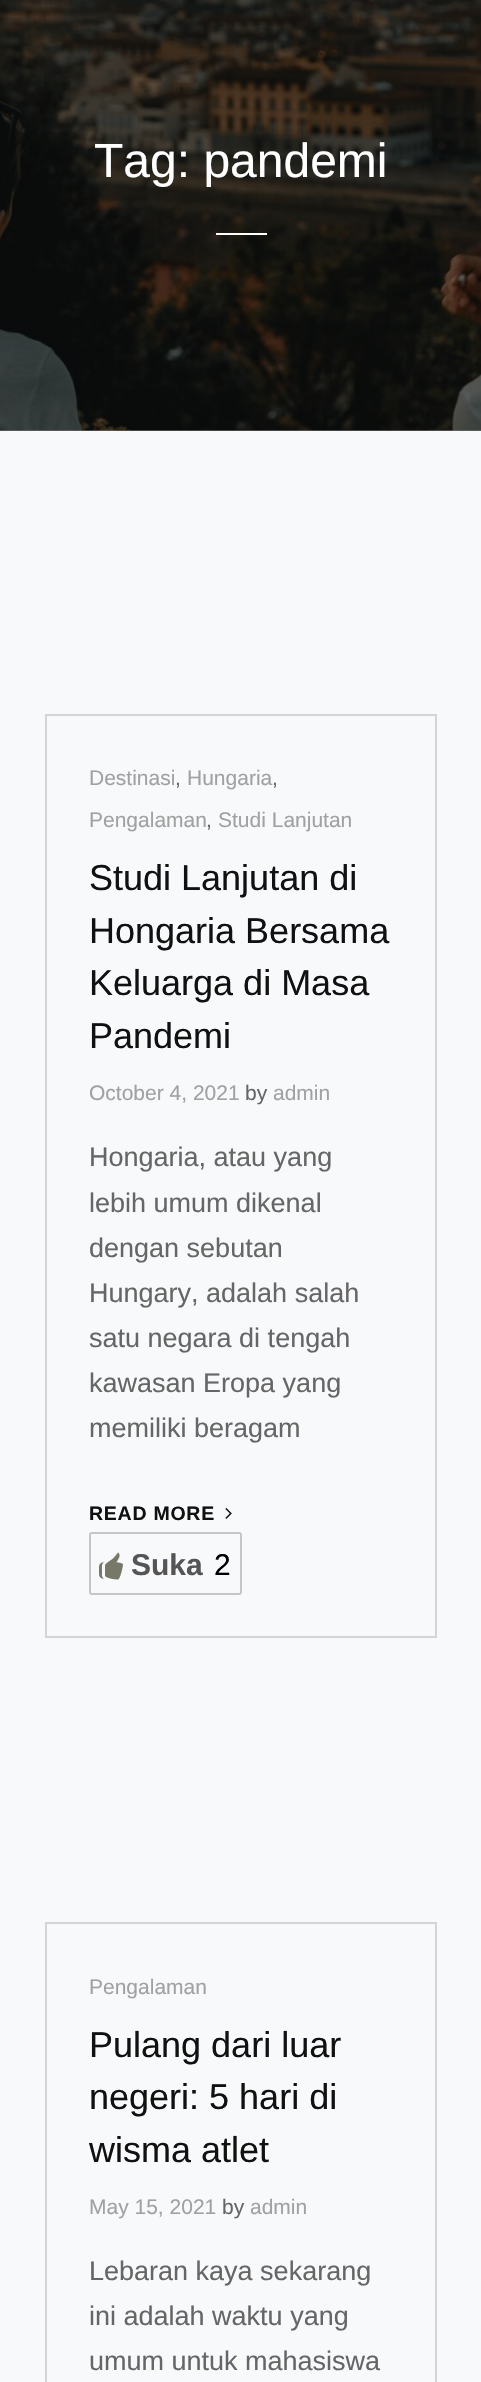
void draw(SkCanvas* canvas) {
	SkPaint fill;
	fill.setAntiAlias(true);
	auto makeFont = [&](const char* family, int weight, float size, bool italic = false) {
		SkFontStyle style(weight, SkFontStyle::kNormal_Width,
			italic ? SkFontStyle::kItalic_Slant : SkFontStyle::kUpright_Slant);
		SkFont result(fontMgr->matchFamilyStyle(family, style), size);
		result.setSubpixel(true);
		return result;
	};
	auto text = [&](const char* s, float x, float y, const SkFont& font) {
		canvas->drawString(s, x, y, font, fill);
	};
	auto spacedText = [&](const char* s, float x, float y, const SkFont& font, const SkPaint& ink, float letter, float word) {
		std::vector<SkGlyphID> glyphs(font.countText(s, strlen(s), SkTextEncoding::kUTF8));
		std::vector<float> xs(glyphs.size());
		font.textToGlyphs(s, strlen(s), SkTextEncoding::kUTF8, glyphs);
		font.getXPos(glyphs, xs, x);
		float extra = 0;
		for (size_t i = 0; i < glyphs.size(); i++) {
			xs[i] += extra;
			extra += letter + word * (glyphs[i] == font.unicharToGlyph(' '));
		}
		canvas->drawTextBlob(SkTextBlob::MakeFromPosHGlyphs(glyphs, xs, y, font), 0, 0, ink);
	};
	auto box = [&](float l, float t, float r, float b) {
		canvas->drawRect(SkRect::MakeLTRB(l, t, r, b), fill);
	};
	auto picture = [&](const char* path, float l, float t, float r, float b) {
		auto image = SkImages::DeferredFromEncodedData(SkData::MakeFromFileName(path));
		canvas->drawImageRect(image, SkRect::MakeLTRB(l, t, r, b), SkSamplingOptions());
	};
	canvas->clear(0xFFF8F9FA);
	fill.setColor(0xFF7C7C7C);
	box(0, 430, 481, 431);
	picture("image0.png", 0, 0, 481, 431);
	fill.setColor(0xFFFFFFFF);
	box(216, 233, 267, 235);
	fill.setStyle(SkPaint::kStroke_Style);
	fill.setStrokeWidth(2);
	fill.setColor(0xFFD3D4D5);
	canvas->drawRect(SkRect::MakeLTRB(46, 715, 436, 1637), fill);
	picture("image1.png", 225, 1508, 232, 1519);
	fill.setColor(0xFFC6C6C6);
	canvas->drawRoundRect(SkRect::MakeLTRB(90, 1533, 241, 1594), 2, 2, fill);
	picture("image2.png", 99, 1552, 123, 1580);
	fill.setColor(0xFFD3D4D5);
	canvas->drawRect(SkRect::MakeLTRB(46, 1923, 436, 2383), fill);
	auto font1 = makeFont("Liberation Sans", 400, 48);
	fill.setStyle(SkPaint::kFill_Style);
	fill.setColor(0xFFFFFFFF);
	text("Tag: pandemi", 94, 177, font1);
	auto font2 = makeFont("Liberation Sans", 400, 21);
	fill.setColor(0xFFA0A1A1);
	text("Destinasi", 89, 785, font2);
	fill.setColor(0xFF666666);
	text(",", 175, 785, font2);
	fill.setColor(0xFFA0A1A1);
	text("Hungaria", 187, 785, font2);
	fill.setColor(0xFF666666);
	text(",", 272, 785, font2);
	fill.setColor(0xFFA0A1A1);
	text("Pengalaman", 89, 827, font2);
	fill.setColor(0xFF666666);
	text(",", 206, 827, font2);
	fill.setColor(0xFFA0A1A1);
	text("Studi Lanjutan", 218, 827, font2);
	auto font3 = makeFont("Liberation Sans", 400, 36);
	fill.setColor(0xFF111111);
	text("Studi Lanjutan di", 89, 890, font3);
	text("Hongaria Bersama", 89, 943, font3);
	text("Keluarga di Masa", 89, 995, font3);
	text("Pandemi", 89, 1048, font3);
	fill.setColor(0xFFA0A1A1);
	text("October 4, 2021", 89, 1100, font2);
	fill.setColor(0xFF666666);
	text("by", 245, 1100, font2);
	fill.setColor(0xFFA0A1A1);
	text("admin", 273, 1100, font2);
	auto font4 = makeFont("Liberation Sans", 400, 27);
	fill.setColor(0xFF666666);
	text("Hongaria, atau yang", 89, 1166, font4);
	text("lebih umum dikenal", 89, 1212, font4);
	text("dengan sebutan", 89, 1257, font4);
	text("Hungary, adalah salah", 89, 1302, font4);
	text("satu negara di tengah", 89, 1347, font4);
	text("kawasan Eropa yang", 89, 1392, font4);
	text("memiliki beragam", 89, 1437, font4);
	auto font5 = makeFont("Liberation Sans", 700, 19.5f);
	fill.setColor(0xFF111111);
	spacedText("READ MORE", 89, 1520, font5, fill, 0.75f, 0);
	auto font6 = makeFont("Liberation Sans", 700, 30);
	fill.setColor(0xFF555555);
	text("Suka", 131, 1575, font6);
	auto font7 = makeFont("Liberation Sans", 400, 30);
	fill.setColor(0xFF000000);
	text("2", 214, 1575, font7);
	fill.setColor(0xFFA0A1A1);
	text("Pengalaman", 89, 1994, font2);
	fill.setColor(0xFF111111);
	text("Pulang dari luar", 89, 2057, font3);
	text("negeri: 5 hari di", 89, 2109, font3);
	text("wisma atlet", 89, 2162, font3);
	fill.setColor(0xFFA0A1A1);
	text("May 15, 2021", 89, 2214, font2);
	fill.setColor(0xFF666666);
	text("by", 222, 2214, font2);
	fill.setColor(0xFFA0A1A1);
	text("admin", 250, 2214, font2);
	fill.setColor(0xFF666666);
	text("Lebaran kaya sekarang", 89, 2280, font4);
	text("ini adalah waktu yang", 89, 2325, font4);
	text("umum untuk mahasiswa", 89, 2370, font4);
}
